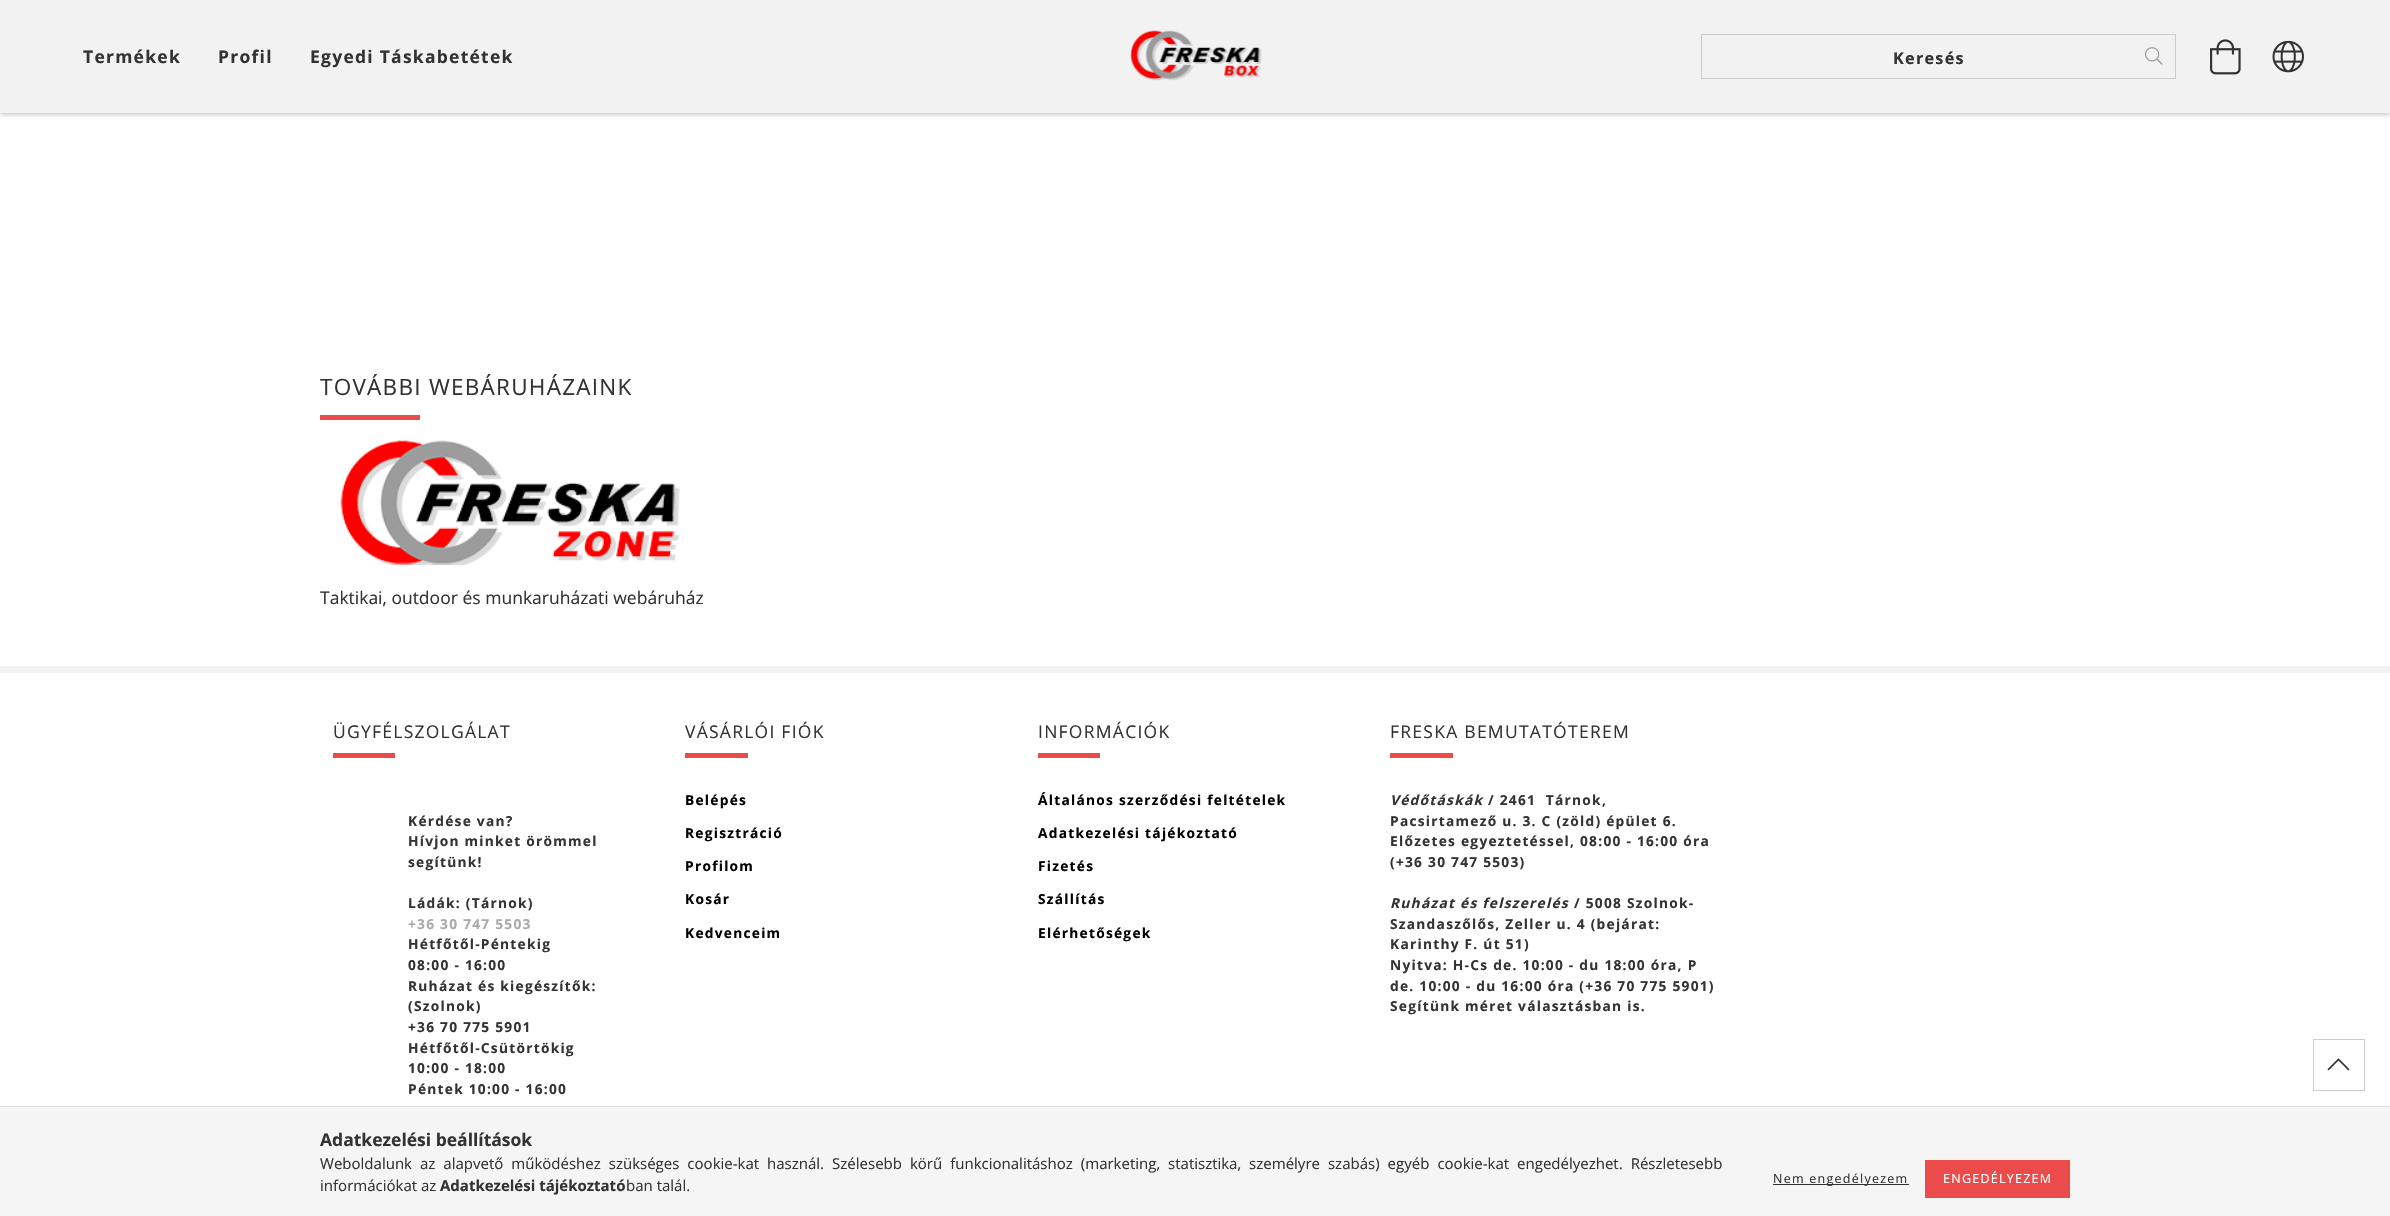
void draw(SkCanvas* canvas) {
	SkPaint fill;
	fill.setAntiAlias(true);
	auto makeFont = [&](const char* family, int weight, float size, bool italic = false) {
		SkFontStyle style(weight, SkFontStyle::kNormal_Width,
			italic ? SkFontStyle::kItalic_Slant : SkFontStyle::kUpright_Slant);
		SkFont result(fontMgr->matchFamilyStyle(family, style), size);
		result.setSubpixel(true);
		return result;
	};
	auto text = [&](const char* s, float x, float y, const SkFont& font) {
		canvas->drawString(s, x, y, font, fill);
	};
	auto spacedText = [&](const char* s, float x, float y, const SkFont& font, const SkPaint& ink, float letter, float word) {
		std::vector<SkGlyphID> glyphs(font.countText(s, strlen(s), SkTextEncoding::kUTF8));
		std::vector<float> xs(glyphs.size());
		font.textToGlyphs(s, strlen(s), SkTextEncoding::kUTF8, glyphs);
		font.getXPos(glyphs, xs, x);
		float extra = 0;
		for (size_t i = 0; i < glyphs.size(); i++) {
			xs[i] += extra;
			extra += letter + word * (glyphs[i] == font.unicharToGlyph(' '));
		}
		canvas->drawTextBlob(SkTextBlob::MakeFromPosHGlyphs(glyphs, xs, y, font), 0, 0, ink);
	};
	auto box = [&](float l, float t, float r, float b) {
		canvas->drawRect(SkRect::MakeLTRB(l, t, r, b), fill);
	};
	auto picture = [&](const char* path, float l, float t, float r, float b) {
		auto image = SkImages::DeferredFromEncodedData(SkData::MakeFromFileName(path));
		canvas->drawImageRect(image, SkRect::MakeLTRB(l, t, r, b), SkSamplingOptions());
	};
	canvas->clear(0xFFFFFFFF);
	canvas->save();
	canvas->clipPath(SkPathBuilder(SkPathFillType::kEvenOdd).moveTo(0, 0).lineTo(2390, 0).lineTo(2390, 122).lineTo(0, 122).close().moveTo(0, 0).lineTo(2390, 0).lineTo(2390, 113).lineTo(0, 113).close().detach(), true);
	fill.setColor(0x33000000);
	fill.setMaskFilter(SkMaskFilter::MakeBlur(kNormal_SkBlurStyle, 2));
	canvas->drawRect(SkRect::MakeLTRB(0, 3, 2390, 115), fill);
	fill.setMaskFilter(nullptr);
	canvas->restore();
	fill.setColor(0xE6F1F1F1);
	box(0, 0, 2390, 113);
	picture("image0.png", 1130, 30, 1262, 81);
	fill.setStyle(SkPaint::kStroke_Style);
	fill.setStrokeWidth(1);
	fill.setColor(0xFFCCCCCC);
	canvas->drawRect(SkRect::MakeLTRB(1701.5f, 34.5f, 2175.5f, 78.5f), fill);
	picture("image1.png", 2145, 47, 2163, 65);
	picture("image2.png", 2210, 39, 2241, 75);
	picture("image3.png", 2272, 40, 2304, 73);
	fill.setStyle(SkPaint::kFill_Style);
	fill.setColor(0xFFEC4B4B);
	box(320, 415, 420, 420);
	picture("image4.png", 340, 440, 680, 565);
	fill.setColor(0xFFF1F1F1);
	box(0, 666, 2390, 673);
	fill.setColor(0xFFEC4B4B);
	box(333, 753, 395, 758);
	box(685, 753, 748, 758);
	box(1038, 753, 1100, 758);
	box(1390, 753, 1453, 758);
	fill.setStyle(SkPaint::kStroke_Style);
	fill.setColor(0xFFCCCCCC);
	canvas->drawRect(SkRect::MakeLTRB(2313.5f, 1039.5f, 2364.5f, 1090.5f), fill);
	picture("image5.png", 2327, 1058, 2350, 1071);
	fill.setStyle(SkPaint::kFill_Style);
	fill.setColor(0xFFF5F5F5);
	box(0, 1107, 2390, 1216);
	fill.setColor(0xFFDDDDDD);
	box(0, 1106, 2390, 1107);
	fill.setColor(0xFF333333);
	box(1773, 1184, 1909, 1185);
	fill.setColor(0xFFEC4B4B);
	box(1925, 1160, 2070, 1198);
	auto font1 = makeFont("Open Sans", 700, 17.5f);
	fill.setColor(0xFF333333);
	spacedText("Termékek", 83, 63, font1, fill, 1.25f, 0);
	spacedText("Profil", 218, 63, font1, fill, 1.25f, 0);
	spacedText("Egyedi Táskabetétek", 310, 63, font1, fill, 1.25f, 0);
	auto font2 = makeFont("Open Sans", 700, 16.25f);
	spacedText("Keresés", 1893, 64, font2, fill, 1.25f, 0);
	auto font3 = makeFont("Open Sans", 400, 22.5f);
	spacedText("TOVÁBBI WEBÁRUHÁZAINK", 320, 395, font3, fill, 1.25f, 0);
	auto font4 = makeFont("Open Sans", 400, 17.5f);
	text("Taktikai, outdoor és munkaruházati webáruház", 320, 604, font4);
	spacedText("ÜGYFÉLSZOLGÁLAT", 333, 738, font4, fill, 1.25f, 0);
	auto font5 = makeFont("Open Sans", 700, 13.75f);
	spacedText("Kérdése van?", 408, 826, font5, fill, 1.25f, 0);
	spacedText("Hívjon minket örömmel", 408, 846, font5, fill, 1.25f, 0);
	spacedText("segítünk!", 408, 867, font5, fill, 1.25f, 0);
	spacedText("Ládák: (Tárnok)", 408, 908, font5, fill, 1.25f, 0);
	fill.setColor(0xFFAAAAAA);
	spacedText("+36 30 747 5503", 408, 929, font5, fill, 1.25f, 0);
	fill.setColor(0xFF333333);
	spacedText("Hétfőtől-Péntekig", 408, 949, font5, fill, 1.25f, 0);
	spacedText("08:00 - 16:00", 408, 970, font5, fill, 1.25f, 0);
	spacedText("Ruházat és kiegészítők:", 408, 991, font5, fill, 1.25f, 0);
	spacedText("(Szolnok)", 408, 1011, font5, fill, 1.25f, 0);
	spacedText("+36 70 775 5901", 408, 1032, font5, fill, 1.25f, 0);
	spacedText("Hétfőtől-Csütörtökig", 408, 1053, font5, fill, 1.25f, 0);
	spacedText("10:00 - 18:00", 408, 1073, font5, fill, 1.25f, 0);
	spacedText("Péntek 10:00 - 16:00", 408, 1094, font5, fill, 1.25f, 0);
	spacedText("VÁSÁRLÓI FIÓK", 685, 738, font4, fill, 1.25f, 0);
	fill.setColor(0xFF000000);
	spacedText("Belépés", 685, 805, font5, fill, 1.25f, 0);
	spacedText("Regisztráció", 685, 838, font5, fill, 1.25f, 0);
	spacedText("Profilom", 685, 871, font5, fill, 1.25f, 0);
	spacedText("Kosár", 685, 904, font5, fill, 1.25f, 0);
	spacedText("Kedvenceim", 685, 938, font5, fill, 1.25f, 0);
	fill.setColor(0xFF333333);
	spacedText("INFORMÁCIÓK", 1038, 738, font4, fill, 1.25f, 0);
	fill.setColor(0xFF000000);
	spacedText("Általános szerződési feltételek", 1038, 805, font5, fill, 1.25f, 0);
	spacedText("Adatkezelési tájékoztató", 1038, 838, font5, fill, 1.25f, 0);
	spacedText("Fizetés", 1038, 871, font5, fill, 1.25f, 0);
	spacedText("Szállítás", 1038, 904, font5, fill, 1.25f, 0);
	spacedText("Elérhetőségek", 1038, 938, font5, fill, 1.25f, 0);
	fill.setColor(0xFF333333);
	spacedText("FRESKA BEMUTATÓTEREM", 1390, 738, font4, fill, 1.25f, 0);
	auto font6 = makeFont("Open Sans", 700, 13.75f, true);
	spacedText("Védőtáskák", 1390, 805, font6, fill, 1.25f, 0);
	spacedText("/ 2461  Tárnok,", 1488, 805, font5, fill, 1.25f, 0);
	spacedText("Pacsirtamező u. 3. C (zöld) épület 6.", 1390, 826, font5, fill, 1.25f, 0);
	spacedText("Előzetes egyeztetéssel, 08:00 - 16:00 óra", 1390, 846, font5, fill, 1.25f, 0);
	spacedText("(+36 30 747 5503)", 1390, 867, font5, fill, 1.25f, 0);
	spacedText("Ruházat és felszerelés", 1390, 908, font6, fill, 1.25f, 0);
	spacedText("/ 5008 Szolnok-", 1574, 908, font5, fill, 1.25f, 0);
	spacedText("Szandaszőlős, Zeller u. 4 (bejárat:", 1390, 929, font5, fill, 1.25f, 0);
	spacedText("Karinthy F. út 51)", 1390, 949, font5, fill, 1.25f, 0);
	spacedText("Nyitva: H-Cs de. 10:00 - du 18:00 óra, P", 1390, 970, font5, fill, 1.25f, 0);
	spacedText("de. 10:00 - du 16:00 óra (+36 70 775 5901)", 1390, 991, font5, fill, 1.25f, 0);
	spacedText("Segítünk méret választásban is.", 1390, 1011, font5, fill, 1.25f, 0);
	text("Adatkezelési beállítások", 320, 1146, font1);
	auto font7 = makeFont("Open Sans", 400, 15);
	spacedText("Weboldalunk az alapvető működéshez szükséges cookie-kat használ. Szélesebb körű funkcionalitáshoz (marketing, statisztika, személyre szabás) egyéb cookie-kat engedélyezhet. Részletesebb", 320, 1169, font7, fill, 0, 4.1f);
	text("információkat az", 320, 1191, font7);
	auto font8 = makeFont("Open Sans", 700, 15);
	text("Adatkezelési tájékoztató", 440, 1191, font8);
	text("ban talál.", 626, 1191, font7);
	auto font9 = makeFont("Open Sans", 400, 12.5f);
	spacedText("Nem engedélyezem", 1773, 1183, font9, fill, 1.25f, 0);
	fill.setColor(0xFFFFFFFF);
	spacedText("ENGEDÉLYEZEM", 1943, 1183, font9, fill, 1.25f, 0);
}
